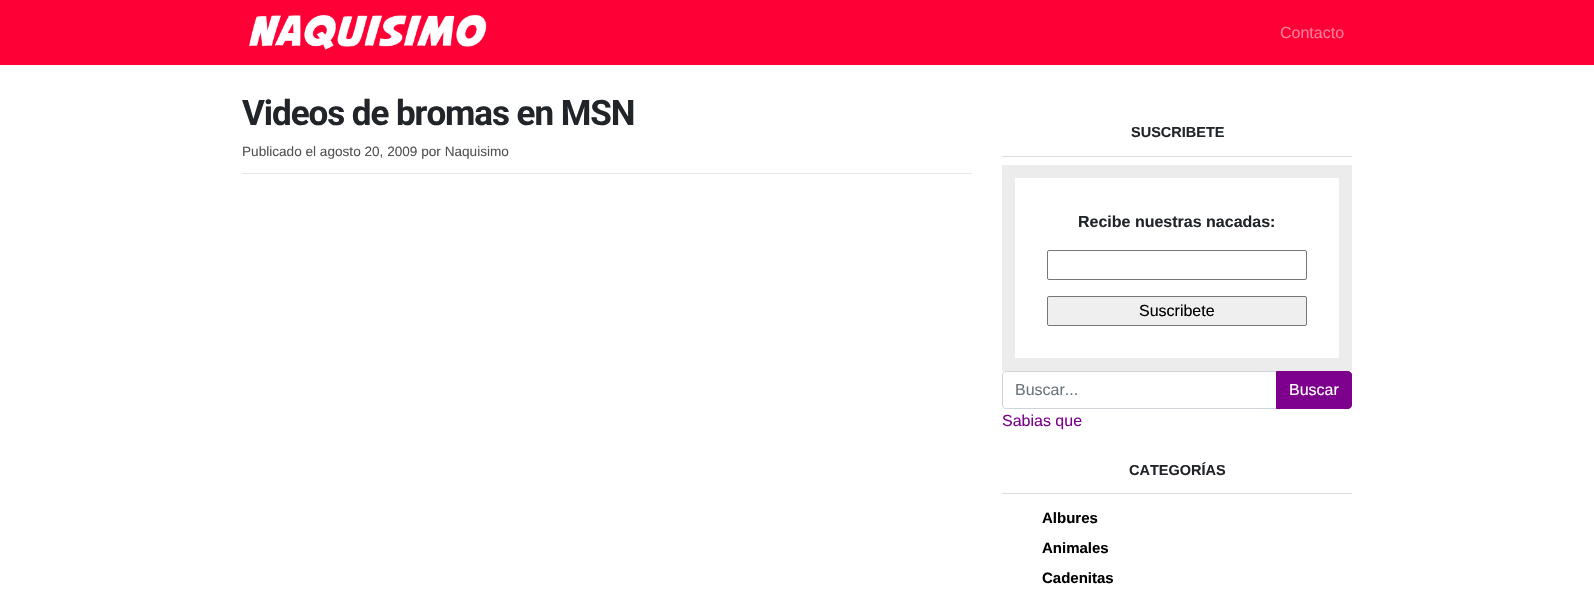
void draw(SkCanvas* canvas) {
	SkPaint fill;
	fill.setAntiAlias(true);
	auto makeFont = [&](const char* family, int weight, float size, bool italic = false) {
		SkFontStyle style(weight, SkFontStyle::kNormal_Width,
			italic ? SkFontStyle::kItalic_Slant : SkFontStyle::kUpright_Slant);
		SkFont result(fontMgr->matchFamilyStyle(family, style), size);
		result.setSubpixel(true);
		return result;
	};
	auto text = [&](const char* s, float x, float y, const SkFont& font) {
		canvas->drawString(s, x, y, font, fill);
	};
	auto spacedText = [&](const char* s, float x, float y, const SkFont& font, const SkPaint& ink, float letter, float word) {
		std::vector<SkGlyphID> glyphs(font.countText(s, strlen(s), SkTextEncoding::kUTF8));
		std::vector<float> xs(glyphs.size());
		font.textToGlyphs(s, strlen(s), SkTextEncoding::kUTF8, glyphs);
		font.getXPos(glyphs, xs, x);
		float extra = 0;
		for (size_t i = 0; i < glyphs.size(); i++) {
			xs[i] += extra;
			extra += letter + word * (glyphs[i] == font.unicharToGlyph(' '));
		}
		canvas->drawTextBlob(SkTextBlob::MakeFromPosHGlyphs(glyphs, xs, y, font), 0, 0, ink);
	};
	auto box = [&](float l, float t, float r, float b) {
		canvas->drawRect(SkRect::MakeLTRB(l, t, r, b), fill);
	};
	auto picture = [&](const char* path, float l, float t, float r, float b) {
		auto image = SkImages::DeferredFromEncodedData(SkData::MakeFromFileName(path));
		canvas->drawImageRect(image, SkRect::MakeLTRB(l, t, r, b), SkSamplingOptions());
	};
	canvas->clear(0xFFFFFFFF);
	fill.setColor(0xFFFF0036);
	box(0, 0, 1594, 65);
	picture("image0.png", 249, 15, 487, 50);
	fill.setColor(0xFFE6E6E6);
	box(242, 173, 972, 174);
	fill.setColor(0xFFDEDEDE);
	box(1002, 156, 1352, 157);
	fill.setStyle(SkPaint::kStroke_Style);
	fill.setStrokeWidth(13);
	fill.setColor(0xFFECECEC);
	canvas->drawRect(SkRect::MakeLTRB(1008.5f, 171.5f, 1345.5f, 364.5f), fill);
	fill.setStrokeWidth(1);
	fill.setColor(0xFF767676);
	canvas->drawRoundRect(SkRect::MakeLTRB(1047.5f, 250.5f, 1306.5f, 279.5f), 1.5f, 1.5f, fill);
	fill.setStyle(SkPaint::kFill_Style);
	fill.setColor(0xFFEFEFEF);
	canvas->drawRoundRect(SkRect::MakeLTRB(1047.5f, 296.5f, 1306.5f, 325.5f), 1.5f, 1.5f, fill);
	fill.setStyle(SkPaint::kStroke_Style);
	fill.setColor(0xFF767676);
	canvas->drawRoundRect(SkRect::MakeLTRB(1047.5f, 296.5f, 1306.5f, 325.5f), 1.5f, 1.5f, fill);
	fill.setColor(0xFFCED4DA);
	canvas->drawPath(SkPathBuilder().moveTo(1006, 371.5f).lineTo(1276.5f, 371.5f).lineTo(1276.5f, 408.5f).lineTo(1006, 408.5f).cubicTo(1004, 408.5f, 1002.5f, 407, 1002.5f, 405).lineTo(1002.5f, 375).cubicTo(1002.5f, 373, 1004, 371.5f, 1006, 371.5f).close().detach(), fill);
	fill.setStyle(SkPaint::kFill_Style);
	fill.setColor(0xFF7C008C);
	canvas->drawPath(SkPathBuilder().moveTo(1276.5f, 371.5f).lineTo(1348, 371.5f).cubicTo(1350, 371.5f, 1351.5f, 373, 1351.5f, 375).lineTo(1351.5f, 405).cubicTo(1351.5f, 407, 1350, 408.5f, 1348, 408.5f).lineTo(1276.5f, 408.5f).close().detach(), fill);
	fill.setStyle(SkPaint::kStroke_Style);
	canvas->drawPath(SkPathBuilder().moveTo(1276.5f, 371.5f).lineTo(1348, 371.5f).cubicTo(1350, 371.5f, 1351.5f, 373, 1351.5f, 375).lineTo(1351.5f, 405).cubicTo(1351.5f, 407, 1350, 408.5f, 1348, 408.5f).lineTo(1276.5f, 408.5f).close().detach(), fill);
	fill.setStyle(SkPaint::kFill_Style);
	fill.setColor(0xFFDEDEDE);
	box(1002, 493, 1352, 494);
	auto font1 = makeFont("Liberation Sans", 400, 16);
	fill.setColor(0xFFFF809B);
	text("Contacto", 1280, 38, font1);
	auto font2 = makeFont("Roboto", 700, 35);
	fill.setColor(0xFF212529);
	spacedText("Videos de bromas en MSN", 242, 125, font2, fill, -1.05f, 0);
	auto font3 = makeFont("Liberation Sans", 400, 13.6f);
	fill.setColor(0xFF545252);
	text("Publicado el agosto 20, 2009 por Naquisimo", 242, 156, font3);
	auto font4 = makeFont("Liberation Sans", 700, 14.5f);
	fill.setColor(0xFF212529);
	text("SUSCRIBETE", 1131, 137, font4);
	auto font5 = makeFont("Liberation Sans", 700, 16);
	text("Recibe nuestras nacadas:", 1078, 227, font5);
	fill.setColor(0xFF000000);
	text("Suscribete", 1139, 316, font1);
	fill.setColor(0xFF6C757D);
	text("Buscar...", 1015, 395, font1);
	fill.setColor(0xFFFFFFFF);
	text("Buscar", 1289, 395, font1);
	fill.setColor(0xFF7C008C);
	text("Sabias que", 1002, 426, font1);
	fill.setColor(0xFF212529);
	text("CATEGORÍAS", 1129, 475, font4);
	auto font6 = makeFont("Liberation Sans", 700, 15);
	fill.setColor(0xFF000000);
	text("Albures", 1042, 523, font6);
	text("Animales", 1042, 553, font6);
	text("Cadenitas", 1042, 583, font6);
}
